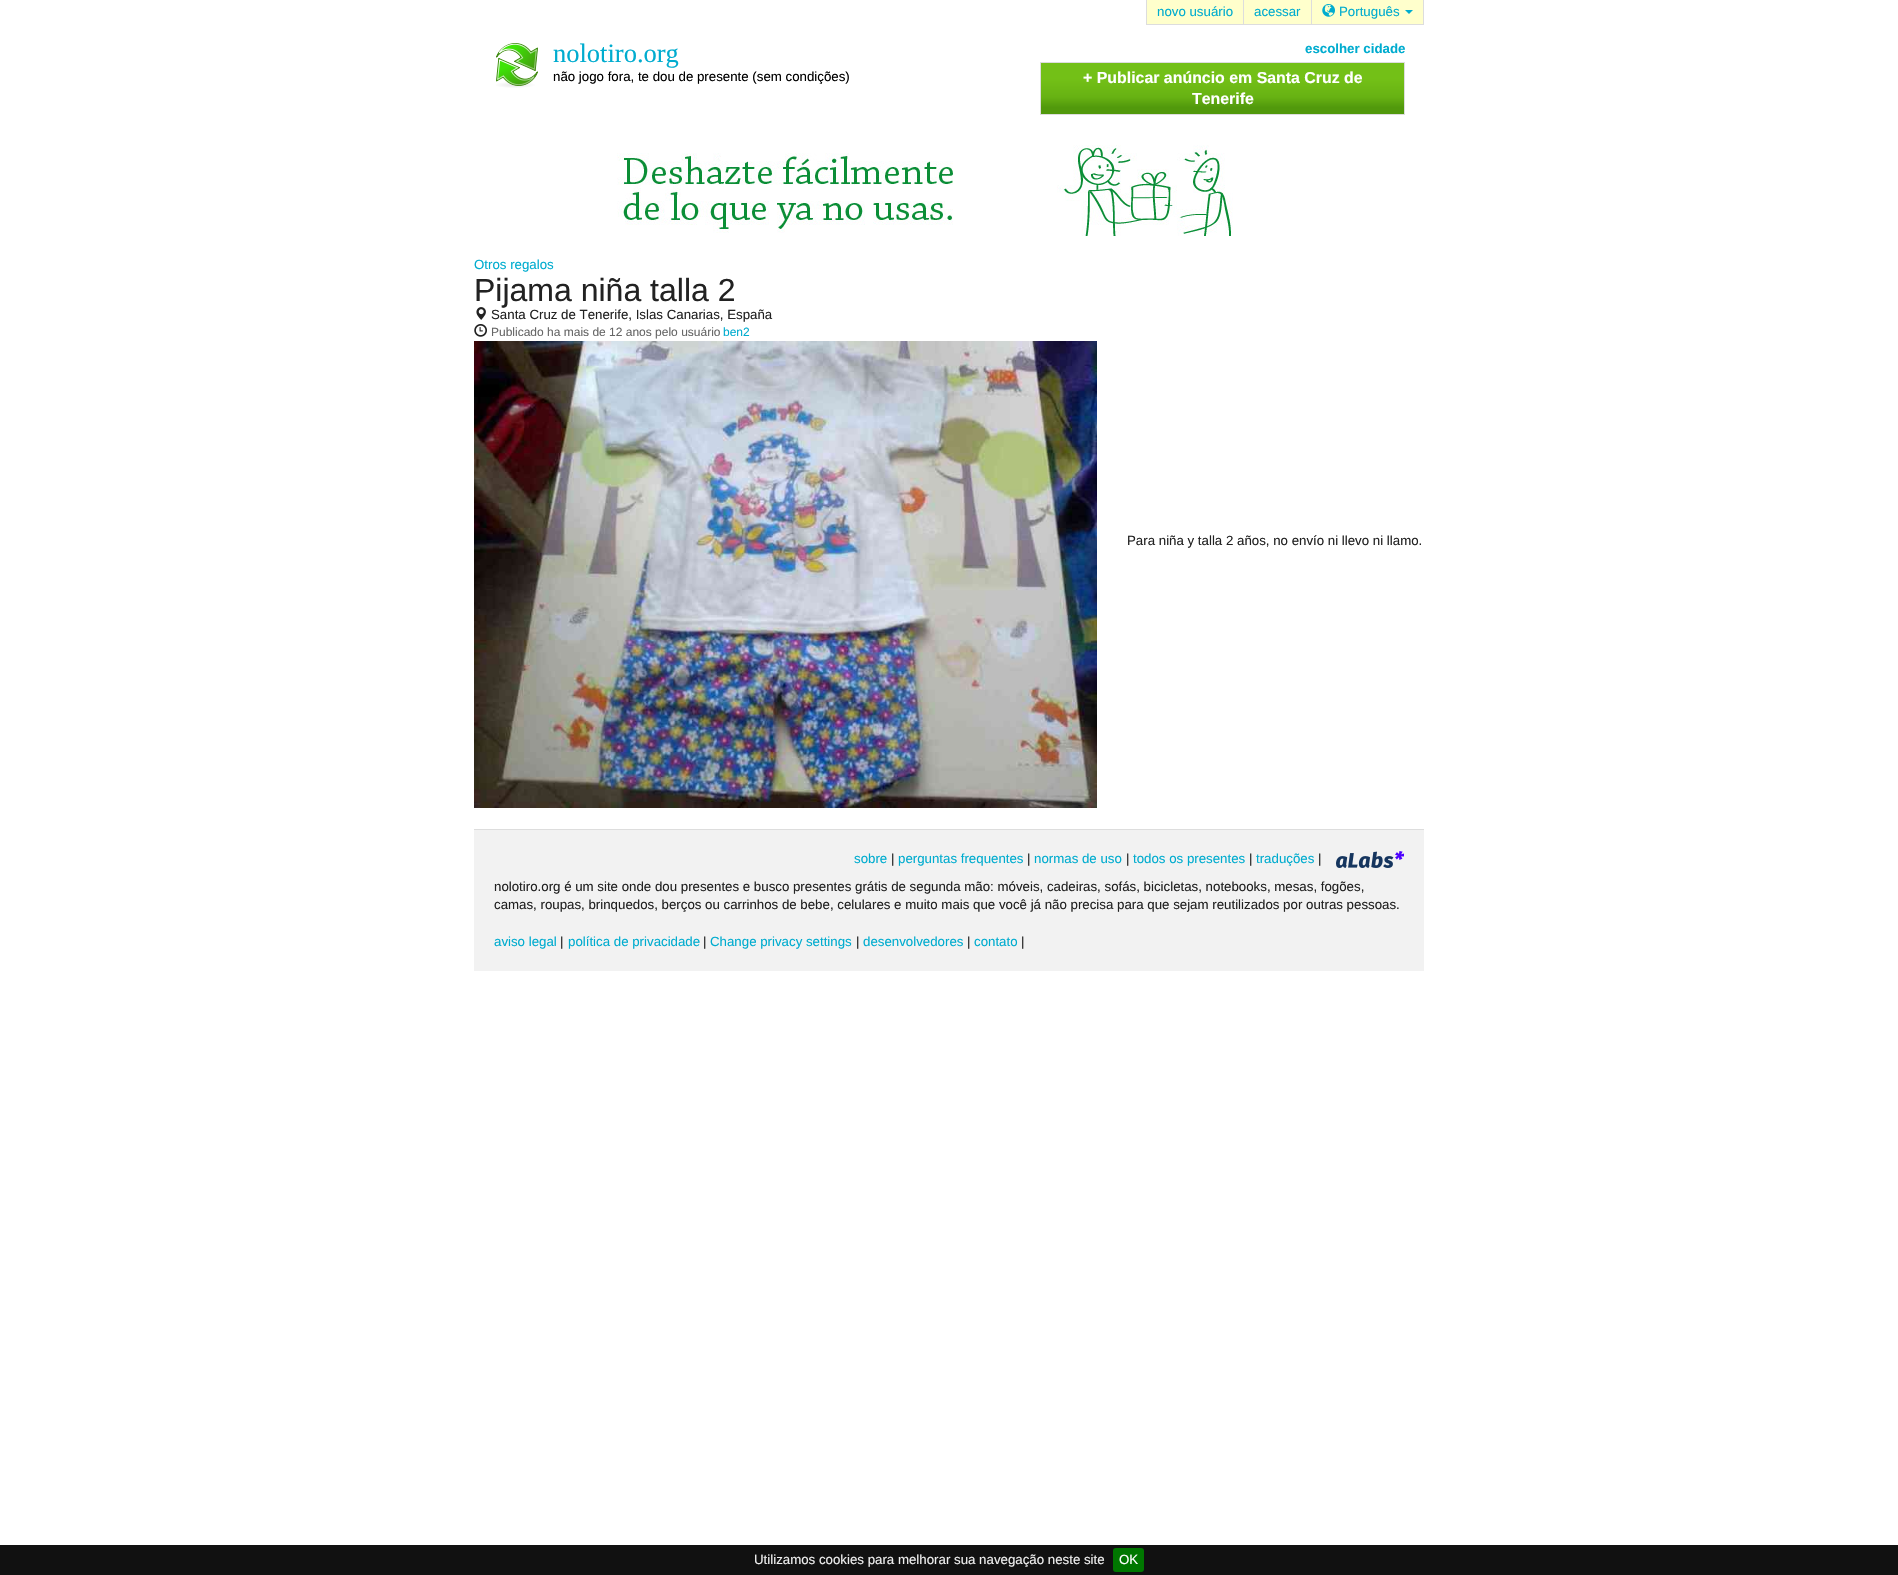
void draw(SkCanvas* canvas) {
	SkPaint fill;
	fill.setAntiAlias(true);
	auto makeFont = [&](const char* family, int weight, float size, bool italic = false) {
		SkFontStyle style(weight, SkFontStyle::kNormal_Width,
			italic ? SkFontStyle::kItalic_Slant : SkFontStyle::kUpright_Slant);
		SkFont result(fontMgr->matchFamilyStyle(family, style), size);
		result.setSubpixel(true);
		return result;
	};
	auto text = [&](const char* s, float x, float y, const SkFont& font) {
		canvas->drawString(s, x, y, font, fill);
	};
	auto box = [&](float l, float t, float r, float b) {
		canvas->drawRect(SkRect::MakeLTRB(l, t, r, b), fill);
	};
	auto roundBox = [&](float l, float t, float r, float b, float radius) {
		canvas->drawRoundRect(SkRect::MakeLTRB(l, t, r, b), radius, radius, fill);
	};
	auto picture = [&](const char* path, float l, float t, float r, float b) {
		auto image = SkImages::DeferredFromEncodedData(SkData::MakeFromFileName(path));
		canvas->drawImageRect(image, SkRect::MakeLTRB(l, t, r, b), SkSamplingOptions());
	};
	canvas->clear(0xFFFFFFFF);
	fill.setColor(0xFFDDDDDD);
	box(1423, 0, 1424, 25);
	box(1146, 24, 1424, 25);
	box(1146, 0, 1147, 25);
	fill.setColor(0xFFFFFFCC);
	box(1147, 0, 1243, 24);
	fill.setColor(0xFFDDDDDD);
	box(1243, 0, 1244, 24);
	fill.setColor(0xFFFFFFCC);
	box(1244, 0, 1311, 24);
	fill.setColor(0xFFDDDDDD);
	box(1311, 0, 1312, 24);
	fill.setColor(0xFFFFFFCC);
	box(1312, 0, 1423, 24);
	picture("image0.png", 1322, 4, 1335, 17);
	fill.setColor(0xFF00ACCF);
	canvas->drawPath(SkPathBuilder().moveTo(1405, 10).lineTo(1413, 10).lineTo(1409, 14).close().detach(), fill);
	picture("image1.png", 496, 43, 538, 88);
	{
		const SkColor colors[] = {0xFF73C017, 0xFF67B213, 0xFF51990C};
		const float stops[] = {0.31f, 0.67f, 0.87f};
		const SkPoint ends[] = {{1223, 63}, {1223, 114}};
		fill.setShader(SkGradientShader::MakeLinear(ends, colors, stops, 3, SkTileMode::kClamp));
		fill.setAlpha(255);
	}
	box(1041, 63, 1404, 114);
	fill.setStyle(SkPaint::kStroke_Style);
	fill.setStrokeWidth(1);
	fill.setShader(nullptr);
	fill.setColor(0xFFDDDDDD);
	canvas->drawRect(SkRect::MakeLTRB(1040.5f, 62.5f, 1404.5f, 114.5f), fill);
	picture("image2.png", 617, 145, 1233, 236);
	picture("image4.png", 474, 324, 487, 337);
	picture("image5.png", 474, 341, 1097, 808);
	fill.setStyle(SkPaint::kFill_Style);
	fill.setColor(0xFFF2F2F2);
	box(474, 830, 1424, 971);
	fill.setColor(0xFFDDDDDD);
	box(474, 829, 1424, 830);
	picture("image6.png", 1336, 851, 1404, 868);
	fill.setColor(0xFF111111);
	box(0, 1545, 1898, 1575);
	fill.setColor(0xFF007700);
	roundBox(1113, 1548, 1144, 1572, 3);
	auto font1 = makeFont("Liberation Sans", 400, 13.28f);
	fill.setColor(0xFF00ACCF);
	text("novo usuário", 1157, 16, font1);
	text("acessar", 1254, 16, font1);
	text("Português", 1339, 16, font1);
	auto font2 = makeFont("Liberation Serif", 400, 26.5f);
	text("nolotiro.org", 553, 62, font2);
	fill.setColor(0xFF000000);
	text("não jogo fora, te dou de presente (sem condições)", 553, 81, font1);
	auto font3 = makeFont("Liberation Sans", 700, 13.28f);
	fill.setColor(0xFF00ACCF);
	text("escolher cidade", 1305, 53, font3);
	auto font4 = makeFont("Liberation Sans", 700, 15.9f);
	fill.setColor(0xFFFFFFFF);
	text("+ Publicar anúncio em Santa Cruz de", 1083, 83, font4);
	text("Tenerife", 1192, 104, font4);
	fill.setColor(0xFF00ACCF);
	text("Otros regalos", 474, 269, font1);
	auto font5 = makeFont("Liberation Sans", 400, 32);
	fill.setColor(0xFF222222);
	text("Pijama niña talla 2", 474, 301, font5);
	picture("image3.png", 476, 307, 486, 320);
	text("Santa Cruz de Tenerife, Islas Canarias, España", 491, 319, font1);
	auto font6 = makeFont("Liberation Sans", 400, 12);
	fill.setColor(0xFF666666);
	text("Publicado ha mais de 12 anos pelo usuário", 491, 336, font6);
	fill.setColor(0xFF00ACCF);
	text("ben2", 723, 336, font6);
	fill.setColor(0xFF222222);
	text("Para niña y talla 2 años, no envío ni llevo ni llamo.", 1127, 545, font1);
	fill.setColor(0xFF00ACCF);
	text("sobre", 854, 863, font1);
	fill.setColor(0xFF222222);
	text("|", 891, 863, font1);
	fill.setColor(0xFF00ACCF);
	text("perguntas frequentes", 898, 863, font1);
	fill.setColor(0xFF222222);
	text("|", 1027, 863, font1);
	fill.setColor(0xFF00ACCF);
	text("normas de uso", 1034, 863, font1);
	fill.setColor(0xFF222222);
	text("|", 1126, 863, font1);
	fill.setColor(0xFF00ACCF);
	text("todos os presentes", 1133, 863, font1);
	fill.setColor(0xFF222222);
	text("|", 1249, 863, font1);
	fill.setColor(0xFF00ACCF);
	text("traduções", 1256, 863, font1);
	fill.setColor(0xFF222222);
	text("|", 1318, 863, font1);
	text("nolotiro.org é um site onde dou presentes e busco presentes grátis de segunda mão: móveis, cadeiras, sofás, bicicletas, notebooks, mesas, fogões,", 494, 891, font1);
	text("camas, roupas, brinquedos, berços ou carrinhos de bebe, celulares e muito mais que você já não precisa para que sejam reutilizados por outras pessoas.", 494, 909, font1);
	fill.setColor(0xFF00ACCF);
	text("aviso legal", 494, 946, font1);
	fill.setColor(0xFF222222);
	text("|", 560, 946, font1);
	fill.setColor(0xFF00ACCF);
	text("política de privacidade", 568, 946, font1);
	fill.setColor(0xFF222222);
	text("|", 703, 946, font1);
	fill.setColor(0xFF00ACCF);
	text("Change privacy settings", 710, 946, font1);
	fill.setColor(0xFF222222);
	text("|", 856, 946, font1);
	fill.setColor(0xFF00ACCF);
	text("desenvolvedores", 863, 946, font1);
	fill.setColor(0xFF222222);
	text("|", 967, 946, font1);
	fill.setColor(0xFF00ACCF);
	text("contato", 974, 946, font1);
	fill.setColor(0xFF222222);
	text("|", 1021, 946, font1);
	fill.setColor(0xFFEEEEEE);
	text("Utilizamos cookies para melhorar sua navegação neste site", 754, 1564, font1);
	fill.setColor(0xFFFFFFFF);
	text("OK", 1119, 1564, font1);
}
